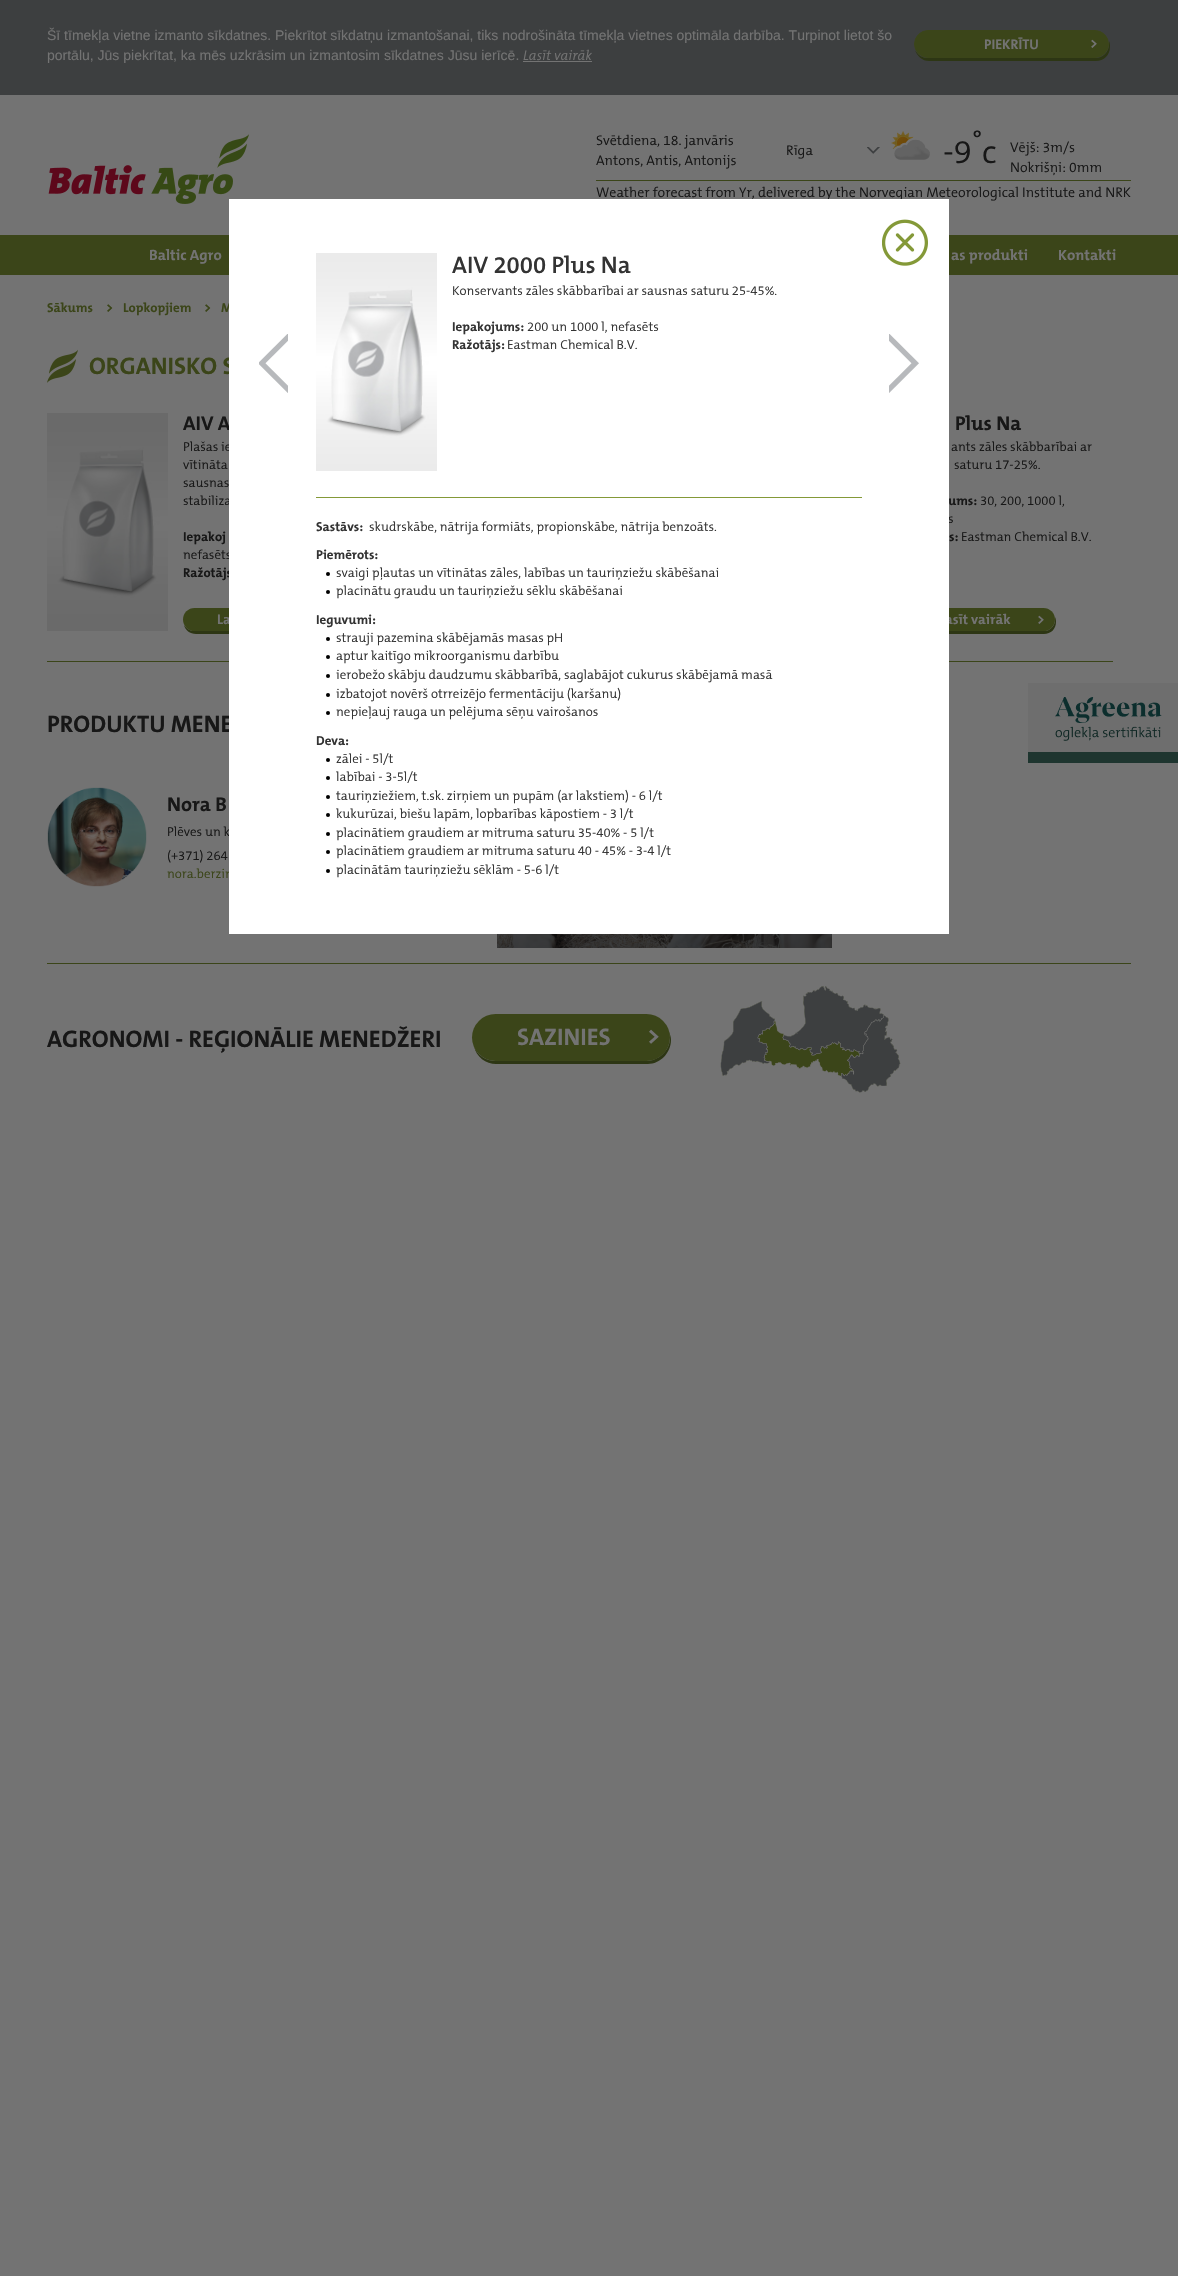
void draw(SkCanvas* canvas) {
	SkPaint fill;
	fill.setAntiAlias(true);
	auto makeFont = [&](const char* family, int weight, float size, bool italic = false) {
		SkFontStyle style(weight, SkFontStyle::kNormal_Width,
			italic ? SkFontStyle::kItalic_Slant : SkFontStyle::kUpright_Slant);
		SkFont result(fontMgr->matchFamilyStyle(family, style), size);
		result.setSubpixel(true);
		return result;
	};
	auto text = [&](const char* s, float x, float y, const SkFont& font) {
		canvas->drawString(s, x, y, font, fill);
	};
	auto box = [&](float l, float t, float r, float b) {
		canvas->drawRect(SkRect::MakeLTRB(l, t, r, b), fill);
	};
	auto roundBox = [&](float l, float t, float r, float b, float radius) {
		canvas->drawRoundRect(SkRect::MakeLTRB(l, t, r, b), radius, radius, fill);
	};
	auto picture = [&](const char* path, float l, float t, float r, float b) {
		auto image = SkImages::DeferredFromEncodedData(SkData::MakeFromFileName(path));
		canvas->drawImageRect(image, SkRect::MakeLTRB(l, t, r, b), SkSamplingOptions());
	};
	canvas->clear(0xFF737373);
	fill.setColor(0xFF3D3F40);
	box(0, 0, 1178, 95);
	fill.setColor(0xFF737373);
	box(523, 61, 592, 62);
	fill.setColor(0xFF2D3614);
	canvas->drawPath(SkPathBuilder().moveTo(915, 50).cubicTo(917, 56, 922, 61, 929, 61).lineTo(1096, 61).cubicTo(1104, 61, 1110, 55, 1110, 47).cubicTo(1110, 45, 1110, 43, 1109, 41).lineTo(1109, 44).cubicTo(1109, 52, 1103, 58, 1095, 58).lineTo(928, 58).cubicTo(922, 58, 918, 55, 915, 50).close().detach(), fill);
	fill.setColor(0xFF3B4519);
	canvas->drawRoundRect(SkRect::MakeLTRB(914.5f, 30.5f, 1108.5f, 57.5f), 13.5f, 13.5f, fill);
	fill.setStyle(SkPaint::kStroke_Style);
	fill.setStrokeWidth(1);
	canvas->drawRoundRect(SkRect::MakeLTRB(914.5f, 30.5f, 1108.5f, 57.5f), 13.5f, 13.5f, fill);
	picture("image0.png", 48, 134, 249, 204);
	picture("image1.png", 867, 147, 880, 154);
	picture("image2.png", 891, 131, 930, 160);
	fill.setStyle(SkPaint::kFill_Style);
	box(596, 180, 1131, 181);
	box(0, 235, 1178, 275);
	picture("image3.png", 1028, 683, 1178, 763);
	picture("image8.png", 47, 349, 78, 383);
	box(47, 661, 229, 662);
	picture("image9.png", 47, 413, 168, 631);
	fill.setColor(0xFF2D3614);
	canvas->drawPath(SkPathBuilder().moveTo(184, 625).cubicTo(185, 630, 190, 634, 196, 634).lineTo(322, 634).cubicTo(328, 634, 333, 629, 333, 622).cubicTo(333, 621, 333, 619, 332, 617).lineTo(332, 620).cubicTo(332, 626, 327, 631, 320, 631).lineTo(194, 631).cubicTo(190, 631, 186, 628, 184, 625).close().detach(), fill);
	fill.setColor(0xFF3B4519);
	roundBox(183, 608, 332, 631, 11.5f);
	box(949, 661, 1113, 662);
	fill.setColor(0xFF2D3614);
	canvas->drawPath(SkPathBuilder().moveTo(906, 625).cubicTo(907, 630, 912, 634, 918, 634).lineTo(1044, 634).cubicTo(1051, 634, 1056, 629, 1056, 622).cubicTo(1056, 621, 1056, 619, 1055, 617).lineTo(1055, 620).cubicTo(1055, 626, 1050, 631, 1044, 631).lineTo(916, 631).cubicTo(912, 631, 908, 628, 906, 625).close().detach(), fill);
	fill.setColor(0xFF3B4519);
	roundBox(905, 608, 1055, 631, 11.5f);
	picture("image10.png", 47, 787, 147, 887);
	picture("image11.png", 497, 934, 832, 948);
	box(47, 963, 1131, 964);
	fill.setColor(0xFF2D3614);
	canvas->drawPath(SkPathBuilder().moveTo(474, 1046).cubicTo(476, 1057, 486, 1064, 496, 1064).lineTo(648, 1064).cubicTo(660, 1064, 671, 1053, 671, 1040).cubicTo(671, 1037, 670, 1034, 669, 1032).lineTo(670, 1038).cubicTo(670, 1050, 659, 1061, 646, 1061).lineTo(496, 1061).cubicTo(486, 1061, 477, 1055, 474, 1046).close().detach(), fill);
	fill.setColor(0xFF3B4519);
	roundBox(472, 1014, 670, 1061, 23.5f);
	picture("image12.png", 720, 986, 901, 1093);
	auto font1 = makeFont("Liberation Sans", 400, 14);
	fill.setColor(0xFF737373);
	text("Šī tīmekļa vietne izmanto sīkdatnes. Piekrītot sīkdatņu izmantošanai, tiks nodrošināta tīmekļa vietnes optimāla darbība. Turpinot lietot šo", 47, 40, font1);
	text("portālu, Jūs piekrītat, ka mēs uzkrāsim un izmantosim sīkdatnes Jūsu ierīcē.", 47, 60, font1);
	auto font2 = makeFont("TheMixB", 300, 14, true);
	text("Lasīt vairāk", 523, 60, font2);
	auto font3 = makeFont("TheMixB", 700, 14);
	text("PIEKRĪTU", 984, 49, font3);
	text(">", 1090, 48, font3);
	auto font4 = makeFont("TheMixB", 300, 14);
	fill.setColor(0xFF171717);
	text("Svētdiena, 18. janvāris", 596, 145, font4);
	text("Antons, Antis, Antonijs", 596, 165, font4);
	text("Rīga", 786, 155, font4);
	auto font5 = makeFont("TheMixB", 300, 33);
	text("-9", 943, 163, font5);
	auto font6 = makeFont("TheMixB", 300, 28);
	text("°", 972, 151, font6);
	text("c", 982, 163, font5);
	text("Vējš: 3m/s", 1010, 152, font4);
	text("Nokrišņi: 0mm", 1010, 172, font4);
	text("Weather forecast from Yr, delivered by the Norvegian Meteorological Institute and NRK", 596, 197, font4);
	auto font7 = makeFont("TheMixB", 700, 15);
	fill.setColor(0xFF737373);
	text("Baltic Agro", 149, 260, font7);
	text("as produkti", 951, 260, font7);
	text("Kontakti", 1058, 260, font7);
	auto font8 = makeFont("TheMixB", 700, 24);
	fill.setColor(0xFF3B4519);
	text("ORGANISKO S", 89, 374, font8);
	auto font9 = makeFont("TheMixB", 700, 20);
	fill.setColor(0xFF171717);
	text("AIV A", 183, 430, font9);
	auto font10 = makeFont("TheMixB", 300, 13);
	text("Plašas ie", 183, 451, font10);
	text("vītināta", 183, 469, font10);
	text("sausnas", 183, 487, font10);
	text("stabiliza", 183, 505, font10);
	auto font11 = makeFont("TheMixB", 700, 13);
	text("Iepakoj", 183, 541, font11);
	text("nefasēts", 183, 559, font10);
	text("Ražotājs", 183, 577, font11);
	fill.setColor(0xFF737373);
	text("La", 217, 624, font3);
	fill.setColor(0xFF171717);
	text("Plus Na", 955, 430, font9);
	text("ants zāles skābbarībai ar", 951, 451, font10);
	text("saturu 17-25%.", 954, 469, font10);
	text("ums:", 948, 505, font11);
	text("30, 200, 1000 l,", 980, 505, font10);
	text("s", 948, 523, font10);
	text("s:", 949, 541, font11);
	text("Eastman Chemical B.V.", 961, 541, font10);
	fill.setColor(0xFF737373);
	text("asīt vairāk", 945, 624, font3);
	text(">", 1037, 624, font3);
	fill.setColor(0xFF171717);
	text("PRODUKTU MENE", 47, 732, font8);
	text("Nora B", 167, 811, font9);
	text("Plēves un k", 167, 836, font10);
	text("(+371) 264", 167, 860, font10);
	fill.setColor(0xFF3B4519);
	text("nora.berzin", 167, 878, font10);
	fill.setColor(0xFF171717);
	text("AGRONOMI - REĢIONĀLIE MENEDŽERI", 47, 1047, font8);
	fill.setColor(0xFF737373);
	text("SAZINIES", 517, 1045, font8);
	text(">", 647, 1044, font8);
	fill.setColor(0xFF3B4519);
	text("Sākums", 47, 312, font11);
	text(">", 106, 312, font11);
	text("Lopkopjiem", 123, 312, font11);
	text(">", 204, 312, font11);
	text("M", 221, 312, font11);
	fill.setColor(0xFFFFFFFF);
	box(229, 199, 949, 934);
	picture("image7.png", 889, 334, 919, 393);
	fill.setColor(0xFF000000);
	canvas->drawCircle(328, 871, 2, fill);
	fill.setColor(0xFF333333);
	text("placinātām tauriņziežu sēklām - 5-6 l/t", 336, 874, font10);
	fill.setColor(0xFF000000);
	canvas->drawCircle(328, 852, 2, fill);
	fill.setColor(0xFF333333);
	text("placinātiem graudiem ar mitruma saturu 40 - 45% - 3-4 l/t", 336, 855, font10);
	fill.setColor(0xFF000000);
	canvas->drawCircle(328, 834, 2, fill);
	fill.setColor(0xFF333333);
	text("placinātiem graudiem ar mitruma saturu 35-40% - 5 l/t", 336, 837, font10);
	fill.setColor(0xFF000000);
	canvas->drawCircle(328, 815, 2, fill);
	fill.setColor(0xFF333333);
	text("kukurūzai, biešu lapām, lopbarības kāpostiem - 3 l/t", 336, 818, font10);
	fill.setColor(0xFF000000);
	canvas->drawCircle(328, 797, 2, fill);
	fill.setColor(0xFF333333);
	text("tauriņziežiem, t.sk. zirņiem un pupām (ar lakstiem) - 6 l/t", 336, 800, font10);
	fill.setColor(0xFF000000);
	canvas->drawCircle(328, 778, 2, fill);
	fill.setColor(0xFF333333);
	text("labībai - 3-5l/t", 336, 781, font10);
	fill.setColor(0xFF000000);
	canvas->drawCircle(328, 760, 2, fill);
	fill.setColor(0xFF333333);
	text("zālei - 5l/t", 336, 763, font10);
	fill.setColor(0xFF000000);
	canvas->drawCircle(328, 713, 2, fill);
	fill.setColor(0xFF333333);
	text("nepieļauj rauga un pelējuma sēņu vairošanos", 336, 716, font10);
	fill.setColor(0xFF000000);
	canvas->drawCircle(328, 695, 2, fill);
	fill.setColor(0xFF333333);
	text("izbatojot novērš otrreizējo fermentāciju (karšanu)", 336, 698, font10);
	fill.setColor(0xFF000000);
	canvas->drawCircle(328, 676, 2, fill);
	fill.setColor(0xFF333333);
	text("ierobežo skābju daudzumu skābbarībā, saglabājot cukurus skābējamā masā", 336, 679, font10);
	fill.setColor(0xFF000000);
	canvas->drawCircle(328, 657, 2, fill);
	fill.setColor(0xFF333333);
	text("aptur kaitīgo mikroorganismu darbību", 336, 660, font10);
	fill.setColor(0xFF000000);
	canvas->drawCircle(328, 639, 2, fill);
	fill.setColor(0xFF333333);
	text("strauji pazemina skābējamās masas pH", 336, 642, font10);
	fill.setColor(0xFF000000);
	canvas->drawCircle(328, 592, 2, fill);
	fill.setColor(0xFF333333);
	text("placinātu graudu un tauriņziežu sēklu skābēšanai", 336, 595, font10);
	fill.setColor(0xFF000000);
	canvas->drawCircle(328, 574, 2, fill);
	fill.setColor(0xFF333333);
	text("svaigi pļautas un vītinātas zāles, labības un tauriņziežu skābēšanai", 336, 577, font10);
	picture("image5.png", 259, 334, 288, 393);
	picture("image4.png", 882, 219, 928, 266);
	text("Deva:", 316, 745, font11);
	text("Ieguvumi:", 316, 624, font11);
	text("Piemērots:", 316, 559, font11);
	text("skudrskābe, nātrija formiāts, propionskābe, nātrija benzoāts.", 369, 531, font10);
	text("Sastāvs:", 316, 531, font11);
	text("Eastman Chemical B.V.", 507, 349, font10);
	text("Ražotājs:", 452, 349, font11);
	text("200 un 1000 l, nefasēts", 527, 331, font10);
	text("Iepakojums:", 452, 331, font11);
	text("Konservants zāles skābbarībai ar sausnas saturu 25-45%.", 452, 295, font10);
	auto font12 = makeFont("TheMixB", 600, 24);
	text("AIV 2000 Plus Na", 452, 273, font12);
	picture("image6.png", 316, 253, 437, 471);
	fill.setColor(0xFF849938);
	box(316, 497, 862, 498);
}
